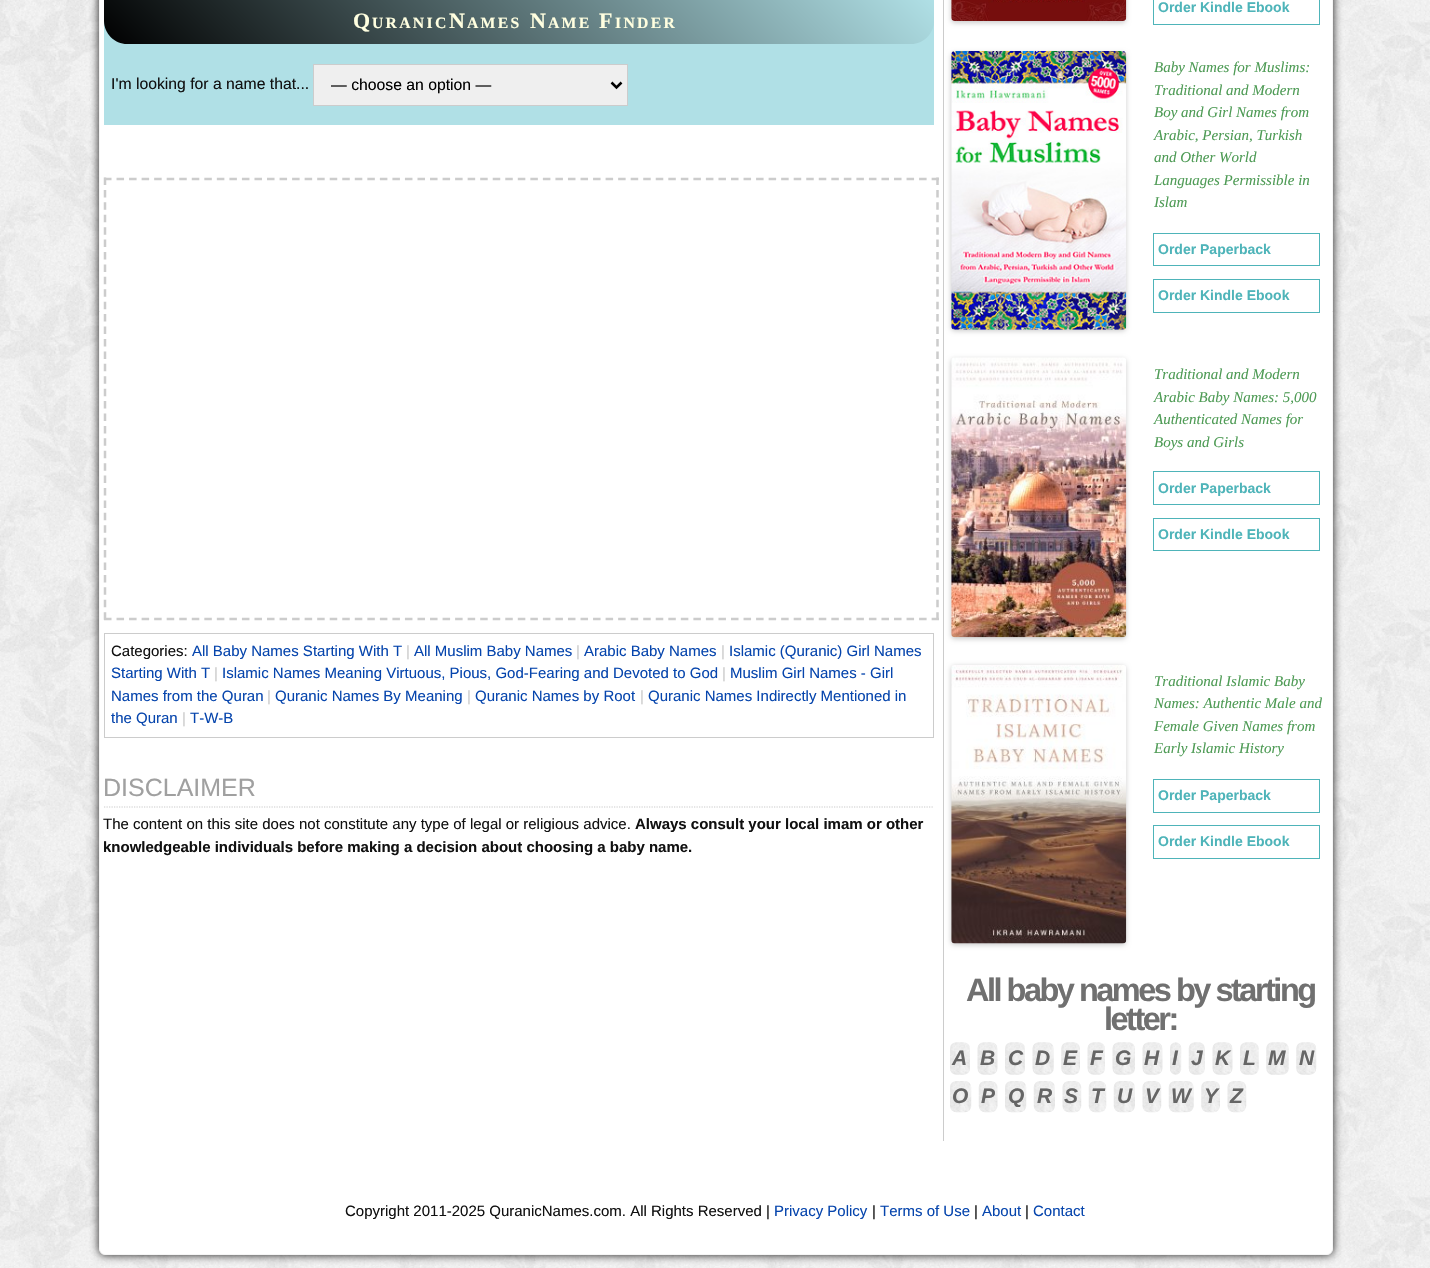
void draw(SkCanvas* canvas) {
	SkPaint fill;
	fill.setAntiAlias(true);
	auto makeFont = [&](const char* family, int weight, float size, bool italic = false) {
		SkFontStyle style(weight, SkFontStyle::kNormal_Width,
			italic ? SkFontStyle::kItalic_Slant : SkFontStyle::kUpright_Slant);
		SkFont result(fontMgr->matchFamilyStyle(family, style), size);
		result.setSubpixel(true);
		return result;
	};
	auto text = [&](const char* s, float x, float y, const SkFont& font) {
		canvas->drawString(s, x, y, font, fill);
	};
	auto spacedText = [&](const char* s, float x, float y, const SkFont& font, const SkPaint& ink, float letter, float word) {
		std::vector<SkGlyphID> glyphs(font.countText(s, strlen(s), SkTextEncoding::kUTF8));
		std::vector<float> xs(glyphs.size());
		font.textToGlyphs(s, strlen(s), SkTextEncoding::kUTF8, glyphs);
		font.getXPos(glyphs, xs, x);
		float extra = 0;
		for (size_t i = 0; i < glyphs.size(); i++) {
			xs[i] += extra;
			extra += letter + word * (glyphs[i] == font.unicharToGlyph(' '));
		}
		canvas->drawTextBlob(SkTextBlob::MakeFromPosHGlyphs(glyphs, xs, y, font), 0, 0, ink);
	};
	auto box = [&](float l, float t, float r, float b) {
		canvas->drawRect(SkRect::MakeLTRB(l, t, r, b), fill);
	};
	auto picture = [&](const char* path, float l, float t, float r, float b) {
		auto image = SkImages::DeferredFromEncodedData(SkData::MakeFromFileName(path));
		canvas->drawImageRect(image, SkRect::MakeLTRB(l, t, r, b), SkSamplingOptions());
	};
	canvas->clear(0xFFFFFFFF);
	picture("image0.png", 0, 0, 1430, 1268);
	fill.setColor(0xFF1B1A1A);
	fill.setMaskFilter(SkMaskFilter::MakeBlur(kNormal_SkBlurStyle, 5));
	canvas->drawRoundRect(SkRect::MakeLTRB(99, -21, 1333, 1255), 6, 6, fill);
	fill.setMaskFilter(nullptr);
	fill.setColor(0xFFFFFFFF);
	canvas->drawRoundRect(SkRect::MakeLTRB(99.5f, -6.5f, 1332.5f, 1254.5f), 5.5f, 5.5f, fill);
	fill.setStyle(SkPaint::kStroke_Style);
	fill.setStrokeWidth(1);
	fill.setColor(0xFFF5F5F5);
	canvas->drawRoundRect(SkRect::MakeLTRB(99.5f, -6.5f, 1332.5f, 1254.5f), 5.5f, 5.5f, fill);
	fill.setStyle(SkPaint::kFill_Style);
	fill.setColor(0xFFB0E0E6);
	box(104, 21, 934, 125);
	{
		const SkColor colors[] = {0xFF000000, 0xFFB0E0E6};
		const float stops[] = {0, 1};
		const SkPoint ends[] = {{300, 240}, {737, -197}};
		fill.setShader(SkGradientShader::MakeLinear(ends, colors, stops, 2, SkTileMode::kClamp));
		fill.setAlpha(255);
	}
	canvas->drawPath(SkPathBuilder().moveTo(104, 0).lineTo(934, 0).lineTo(934, 21).cubicTo(934, 33.5f, 923.5f, 44, 911, 44).lineTo(127, 44).cubicTo(114.5f, 44, 104, 33.5f, 104, 21).close().detach(), fill);
	fill.setShader(nullptr);
	fill.setColor(0xFFEFEFEF);
	canvas->drawRect(SkRect::MakeLTRB(313.5f, 64.5f, 627.5f, 105.5f), fill);
	fill.setStyle(SkPaint::kStroke_Style);
	fill.setColor(0xFFCCCCCC);
	canvas->drawRect(SkRect::MakeLTRB(313.5f, 64.5f, 627.5f, 105.5f), fill);
	fill.setStrokeWidth(2.5f);
	fill.setColor(0xFF000000);
	canvas->drawPath(SkPathBuilder().moveTo(611.5f, 82.5f).lineTo(616.5f, 87.5f).lineTo(621.5f, 82.5f).detach(), fill);
	fill.setColor(0xFFCCCCCC);
	fill.setPathEffect(SkDashPathEffect::Make({{7.5f, 5.04f}}, 0));
	canvas->drawPath(SkPathBuilder().moveTo(104, 179).lineTo(939, 179).detach(), fill);
	fill.setPathEffect(nullptr);
	fill.setPathEffect(SkDashPathEffect::Make({{7.5f, 4.92f}}, 0));
	canvas->drawPath(SkPathBuilder().moveTo(937.5f, 177.5f).lineTo(937.5f, 620).detach(), fill);
	fill.setPathEffect(nullptr);
	fill.setPathEffect(SkDashPathEffect::Make({{7.5f, 5.04f}}, 0));
	canvas->drawPath(SkPathBuilder().moveTo(104, 619).lineTo(939, 619).detach(), fill);
	fill.setPathEffect(nullptr);
	fill.setPathEffect(SkDashPathEffect::Make({{7.5f, 4.92f}}, 0));
	canvas->drawPath(SkPathBuilder().moveTo(105, 177.5f).lineTo(105, 620).detach(), fill);
	fill.setPathEffect(nullptr);
	fill.setStrokeWidth(1);
	canvas->drawRect(SkRect::MakeLTRB(104.5f, 633.5f, 933.5f, 737.5f), fill);
	fill.setStrokeWidth(1.2f);
	fill.setPathEffect(SkDashPathEffect::Make({{1.25f, 1.25f}}, 0));
	canvas->drawPath(SkPathBuilder().moveTo(104, 807).lineTo(934, 807).detach(), fill);
	fill.setPathEffect(nullptr);
	fill.setStyle(SkPaint::kFill_Style);
	box(943, 0, 944, 1141);
	fill.setColor(0x33000000);
	fill.setMaskFilter(SkMaskFilter::MakeBlur(kNormal_SkBlurStyle, 2.5f));
	canvas->drawRoundRect(SkRect::MakeLTRB(951, -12, 1126, 23), 4, 4, fill);
	fill.setMaskFilter(nullptr);
	picture("image1.png", 951, 0, 1127, 21);
	fill.setStyle(SkPaint::kStroke_Style);
	fill.setStrokeWidth(1);
	fill.setColor(0xFF4EB4B9);
	canvas->drawRect(SkRect::MakeLTRB(1153.5f, -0.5f, 1319.5f, 24.5f), fill);
	fill.setStyle(SkPaint::kFill_Style);
	fill.setColor(0x33000000);
	fill.setMaskFilter(SkMaskFilter::MakeBlur(kNormal_SkBlurStyle, 2.5f));
	canvas->drawRoundRect(SkRect::MakeLTRB(951, 53, 1126, 331), 4, 4, fill);
	fill.setMaskFilter(nullptr);
	picture("image2.png", 951, 51, 1127, 330);
	fill.setStyle(SkPaint::kStroke_Style);
	fill.setColor(0xFF4EB4B9);
	canvas->drawRect(SkRect::MakeLTRB(1153.5f, 233.5f, 1319.5f, 265.5f), fill);
	canvas->drawRect(SkRect::MakeLTRB(1153.5f, 279.5f, 1319.5f, 312.5f), fill);
	fill.setStyle(SkPaint::kFill_Style);
	fill.setColor(0x33000000);
	fill.setMaskFilter(SkMaskFilter::MakeBlur(kNormal_SkBlurStyle, 2.5f));
	canvas->drawRoundRect(SkRect::MakeLTRB(951, 359, 1126, 639), 4, 4, fill);
	fill.setMaskFilter(nullptr);
	picture("image3.png", 951, 357, 1127, 638);
	fill.setStyle(SkPaint::kStroke_Style);
	fill.setColor(0xFF4EB4B9);
	canvas->drawRect(SkRect::MakeLTRB(1153.5f, 471.5f, 1319.5f, 504.5f), fill);
	canvas->drawRect(SkRect::MakeLTRB(1153.5f, 518.5f, 1319.5f, 550.5f), fill);
	fill.setStyle(SkPaint::kFill_Style);
	fill.setColor(0x33000000);
	fill.setMaskFilter(SkMaskFilter::MakeBlur(kNormal_SkBlurStyle, 2.5f));
	canvas->drawRoundRect(SkRect::MakeLTRB(951, 666, 1126, 945), 4, 4, fill);
	fill.setMaskFilter(nullptr);
	picture("image4.png", 951, 665, 1127, 944);
	fill.setStyle(SkPaint::kStroke_Style);
	fill.setColor(0xFF4EB4B9);
	canvas->drawRect(SkRect::MakeLTRB(1153.5f, 779.5f, 1319.5f, 812.5f), fill);
	canvas->drawRect(SkRect::MakeLTRB(1153.5f, 825.5f, 1319.5f, 858.5f), fill);
	picture("image5.png", 950, 1042, 970, 1075);
	picture("image6.png", 977, 1042, 998, 1075);
	picture("image7.png", 1005, 1042, 1025, 1075);
	picture("image8.png", 1032, 1042, 1054, 1075);
	picture("image9.png", 1061, 1042, 1080, 1075);
	picture("image10.png", 1087, 1042, 1105, 1075);
	picture("image11.png", 1112, 1042, 1135, 1075);
	picture("image12.png", 1142, 1042, 1163, 1075);
	picture("image13.png", 1170, 1042, 1182, 1075);
	picture("image14.png", 1188, 1042, 1205, 1075);
	picture("image12.png", 1212, 1042, 1233, 1075);
	picture("image15.png", 1240, 1042, 1259, 1075);
	picture("image16.png", 1266, 1042, 1289, 1075);
	picture("image17.png", 1296, 1042, 1317, 1075);
	picture("image18.png", 950, 1081, 972, 1113);
	picture("image19.png", 978, 1081, 998, 1113);
	picture("image20.png", 1005, 1081, 1027, 1113);
	picture("image21.png", 1033, 1081, 1055, 1113);
	picture("image22.png", 1062, 1081, 1082, 1113);
	picture("image23.png", 1088, 1081, 1107, 1113);
	picture("image24.png", 1113, 1081, 1135, 1113);
	picture("image22.png", 1142, 1081, 1162, 1113);
	picture("image25.png", 1168, 1081, 1194, 1113);
	picture("image26.png", 1201, 1081, 1220, 1113);
	picture("image27.png", 1227, 1081, 1247, 1113);
	auto font1 = makeFont("Liberation Serif", 700, 22);
	fill.setStyle(SkPaint::kFill_Style);
	fill.setColor(0xFFFFFFE0);
	spacedText("Q", 353, 28, font1, fill, 2.25f, 0);
	auto font2 = makeFont("Liberation Serif", 700, 15.75f);
	spacedText("URANIC", 372, 28, font2, fill, 2.25f, 0);
	spacedText("N", 449, 28, font1, fill, 2.25f, 0);
	spacedText("AMES", 467, 28, font2, fill, 2.25f, 0);
	spacedText("N", 530, 28, font1, fill, 2.25f, 0);
	spacedText("AME", 548, 28, font2, fill, 2.25f, 0);
	spacedText("F", 599, 28, font1, fill, 2.25f, 0);
	spacedText("INDER", 615, 28, font2, fill, 2.25f, 0);
	auto font3 = makeFont("Liberation Sans", 400, 15.75f);
	fill.setColor(0xFF111111);
	text("I'm looking for a name that...", 111, 89, font3);
	fill.setColor(0xFF000000);
	text("— choose an option —", 331, 90, font3);
	auto font4 = makeFont("Liberation Sans", 400, 15);
	fill.setColor(0xFF111111);
	text("Categories:", 111, 656, font4);
	fill.setColor(0xFF0645AD);
	text("All Baby Names Starting With T", 192, 656, font4);
	fill.setColor(0xFFCCCCCC);
	text("|", 406, 656, font4);
	fill.setColor(0xFF0645AD);
	text("All Muslim Baby Names", 414, 656, font4);
	fill.setColor(0xFFCCCCCC);
	text("|", 576, 656, font4);
	fill.setColor(0xFF0645AD);
	text("Arabic Baby Names", 584, 656, font4);
	fill.setColor(0xFFCCCCCC);
	text("|", 721, 656, font4);
	fill.setColor(0xFF0645AD);
	text("Islamic (Quranic) Girl Names", 729, 656, font4);
	text("Starting With T", 111, 678, font4);
	fill.setColor(0xFFCCCCCC);
	text("|", 214, 678, font4);
	fill.setColor(0xFF0645AD);
	text("Islamic Names Meaning Virtuous, Pious, God-Fearing and Devoted to God", 222, 678, font4);
	fill.setColor(0xFFCCCCCC);
	text("|", 722, 678, font4);
	fill.setColor(0xFF0645AD);
	text("Muslim Girl Names - Girl", 730, 678, font4);
	text("Names from the Quran", 111, 701, font4);
	fill.setColor(0xFFCCCCCC);
	text("|", 267, 701, font4);
	fill.setColor(0xFF0645AD);
	text("Quranic Names By Meaning", 275, 701, font4);
	fill.setColor(0xFFCCCCCC);
	text("|", 467, 701, font4);
	fill.setColor(0xFF0645AD);
	text("Quranic Names by Root", 475, 701, font4);
	fill.setColor(0xFFCCCCCC);
	text("|", 640, 701, font4);
	fill.setColor(0xFF0645AD);
	text("Quranic Names Indirectly Mentioned in", 648, 701, font4);
	text("the Quran", 111, 723, font4);
	fill.setColor(0xFFCCCCCC);
	text("|", 182, 723, font4);
	fill.setColor(0xFF0645AD);
	text("T-W-B", 190, 723, font4);
	auto font5 = makeFont("Liberation Sans", 400, 25);
	fill.setColor(0xFFA0A0A0);
	text("DISCLAIMER", 103, 796, font5);
	fill.setColor(0xFF111111);
	text("The content on this site does not constitute any type of legal or religious advice.", 103, 829, font4);
	auto font6 = makeFont("Liberation Sans", 700, 15);
	text("Always consult your local imam or other", 635, 829, font6);
	text("knowledgeable individuals before making a decision about choosing a baby name.", 103, 852, font6);
	auto font7 = makeFont("Liberation Sans", 700, 14);
	fill.setColor(0xFF4EB4B9);
	text("Order Kindle Ebook", 1158, 12, font7);
	auto font8 = makeFont("Liberation Serif", 400, 15, true);
	fill.setColor(0xFF4E9B55);
	text("Baby Names for Muslims:", 1154, 72, font8);
	text("Traditional and Modern", 1154, 95, font8);
	text("Boy and Girl Names from", 1154, 117, font8);
	text("Arabic, Persian, Turkish", 1154, 140, font8);
	text("and Other World", 1154, 162, font8);
	text("Languages Permissible in", 1154, 185, font8);
	text("Islam", 1154, 207, font8);
	fill.setColor(0xFF4EB4B9);
	text("Order Paperback", 1158, 254, font7);
	text("Order Kindle Ebook", 1158, 300, font7);
	fill.setColor(0xFF4E9B55);
	text("Traditional and Modern", 1154, 379, font8);
	text("Arabic Baby Names: 5,000", 1154, 402, font8);
	text("Authenticated Names for", 1154, 424, font8);
	text("Boys and Girls", 1154, 447, font8);
	fill.setColor(0xFF4EB4B9);
	text("Order Paperback", 1158, 493, font7);
	text("Order Kindle Ebook", 1158, 539, font7);
	fill.setColor(0xFF4E9B55);
	text("Traditional Islamic Baby", 1154, 686, font8);
	text("Names: Authentic Male and", 1154, 708, font8);
	text("Female Given Names from", 1154, 731, font8);
	text("Early Islamic History", 1154, 753, font8);
	fill.setColor(0xFF4EB4B9);
	text("Order Paperback", 1158, 800, font7);
	text("Order Kindle Ebook", 1158, 846, font7);
	auto font9 = makeFont("Liberation Sans", 700, 32.5f);
	fill.setColor(0xFF707070);
	spacedText("All baby names by starting", 966, 1001, font9, fill, -2.5f, 0);
	spacedText("letter:", 1104, 1030, font9, fill, -2.5f, 0);
	auto font10 = makeFont("Liberation Sans", 700, 21, true);
	fill.setColor(0xFF656565);
	text("A", 952, 1065, font10);
	text("B", 980, 1065, font10);
	text("C", 1008, 1065, font10);
	text("D", 1035, 1065, font10);
	text("E", 1063, 1065, font10);
	text("F", 1090, 1065, font10);
	text("G", 1115, 1065, font10);
	text("H", 1144, 1065, font10);
	text("I", 1172, 1065, font10);
	text("J", 1191, 1065, font10);
	text("K", 1215, 1065, font10);
	text("L", 1243, 1065, font10);
	text("M", 1268, 1065, font10);
	text("N", 1299, 1065, font10);
	text("O", 952, 1103, font10);
	text("P", 981, 1103, font10);
	text("Q", 1008, 1103, font10);
	text("R", 1037, 1103, font10);
	text("S", 1064, 1103, font10);
	text("T", 1091, 1103, font10);
	text("U", 1117, 1103, font10);
	text("V", 1145, 1103, font10);
	text("W", 1171, 1103, font10);
	text("Y", 1204, 1103, font10);
	text("Z", 1230, 1103, font10);
	fill.setColor(0xFF111111);
	text("Copyright 2011-2025 QuranicNames.com. All Rights Reserved |", 345, 1216, font4);
	fill.setColor(0xFF0645AD);
	text("Privacy Policy", 774, 1216, font4);
	fill.setColor(0xFF111111);
	text("|", 872, 1216, font4);
	fill.setColor(0xFF0645AD);
	text("Terms of Use", 880, 1216, font4);
	fill.setColor(0xFF111111);
	text("|", 974, 1216, font4);
	fill.setColor(0xFF0645AD);
	text("About", 982, 1216, font4);
	fill.setColor(0xFF111111);
	text("|", 1025, 1216, font4);
	fill.setColor(0xFF0645AD);
	text("Contact", 1033, 1216, font4);
}
